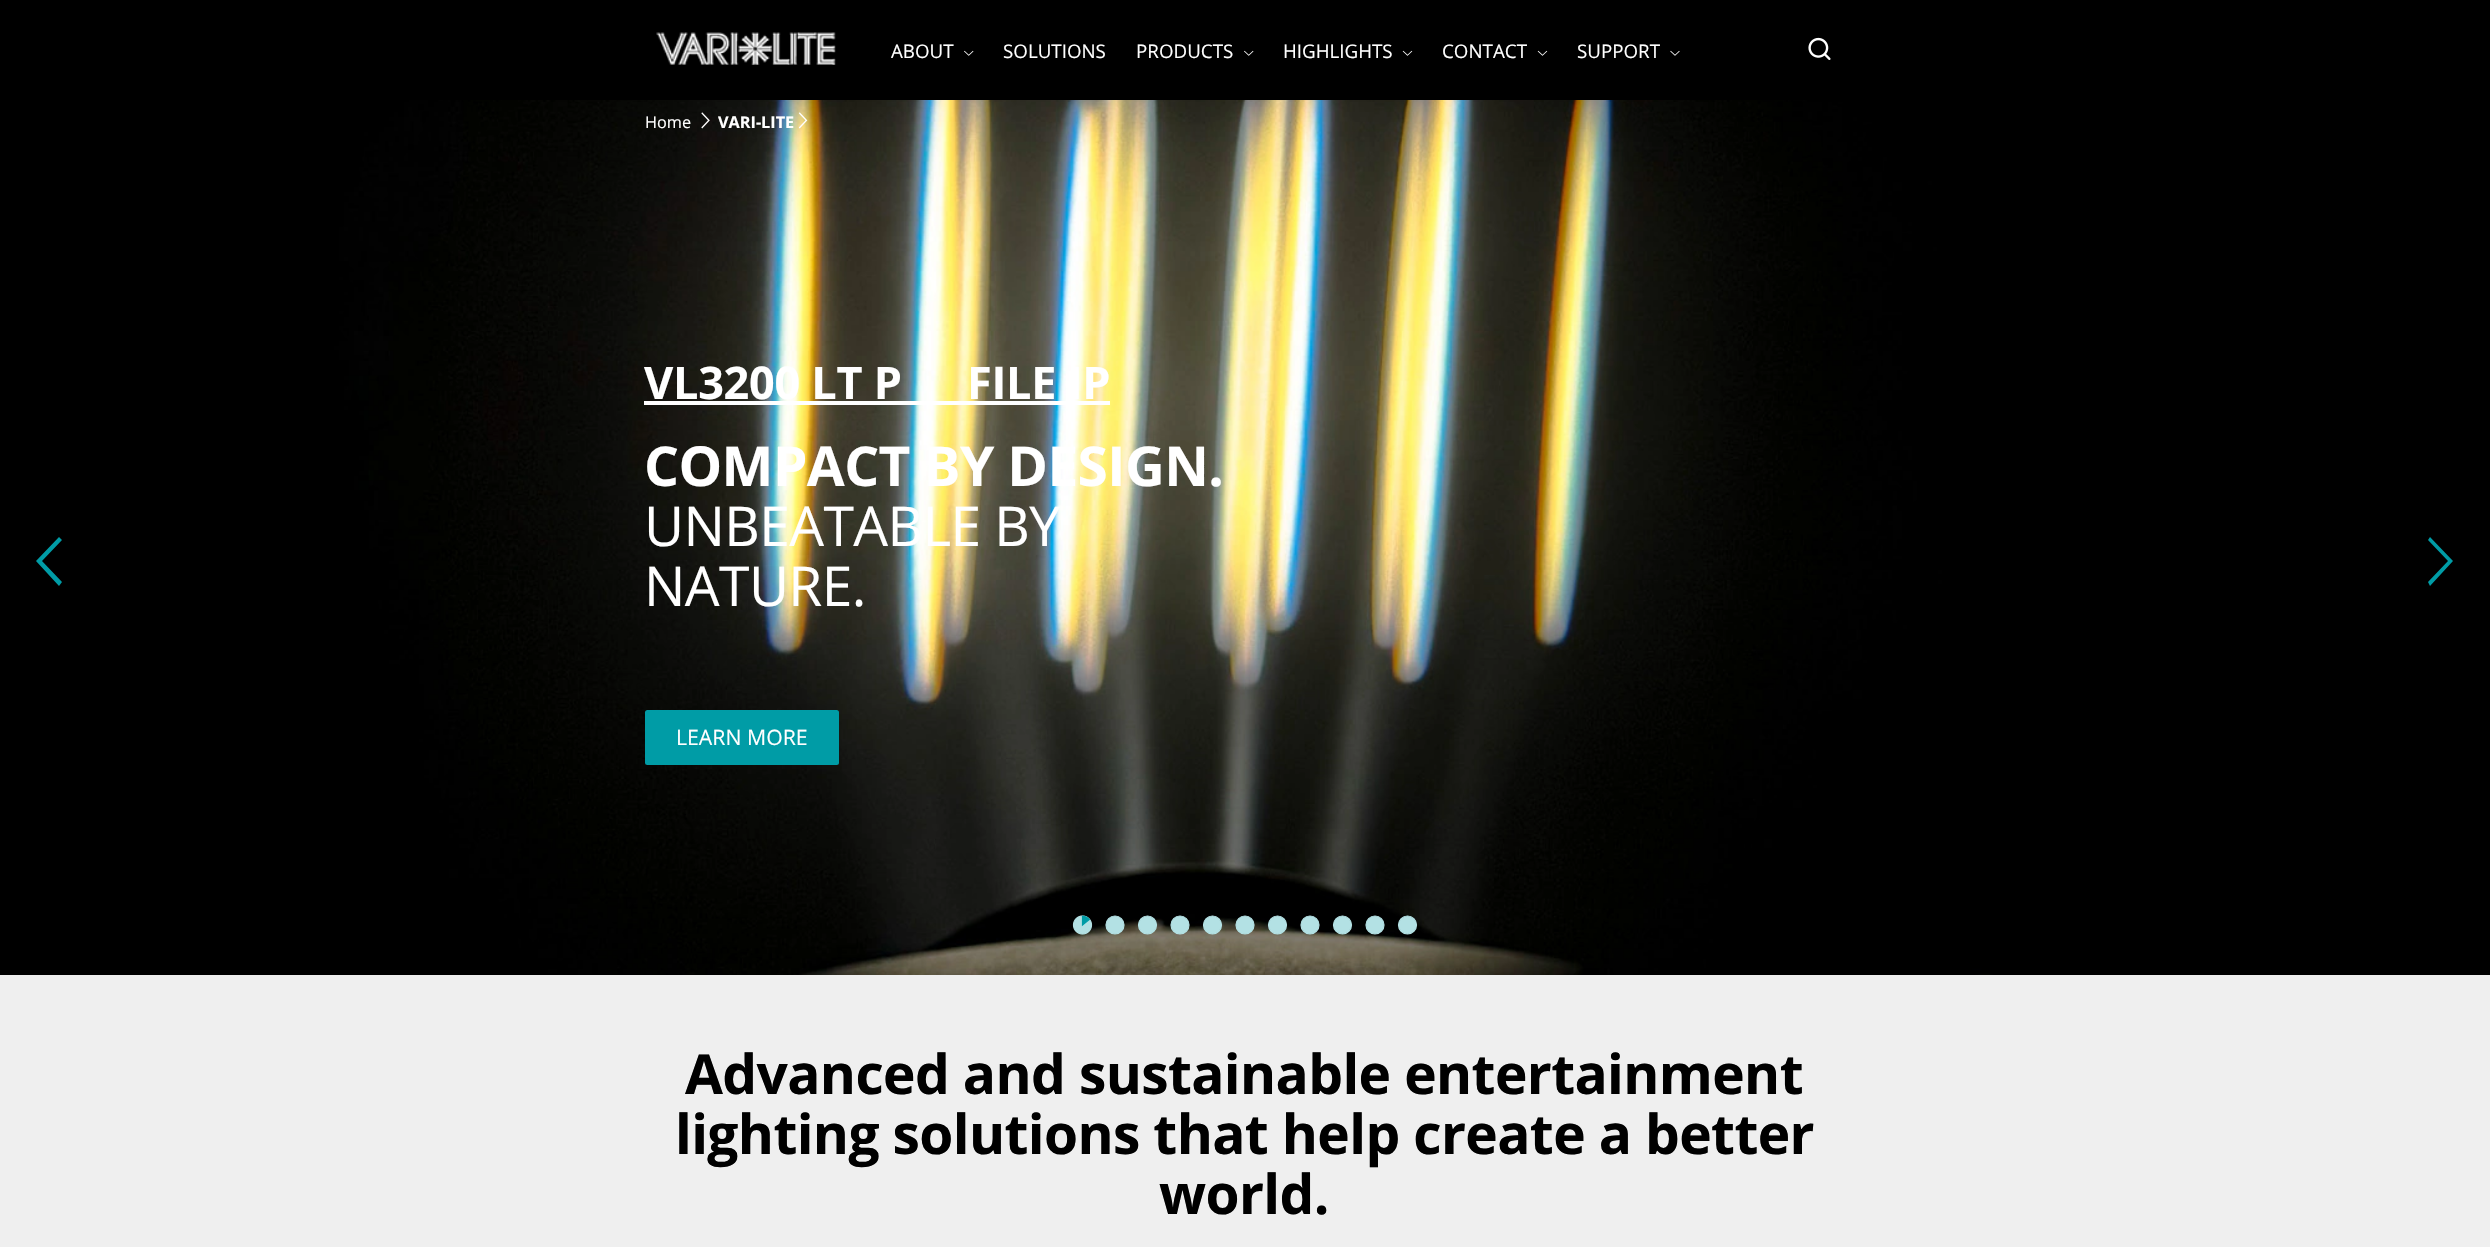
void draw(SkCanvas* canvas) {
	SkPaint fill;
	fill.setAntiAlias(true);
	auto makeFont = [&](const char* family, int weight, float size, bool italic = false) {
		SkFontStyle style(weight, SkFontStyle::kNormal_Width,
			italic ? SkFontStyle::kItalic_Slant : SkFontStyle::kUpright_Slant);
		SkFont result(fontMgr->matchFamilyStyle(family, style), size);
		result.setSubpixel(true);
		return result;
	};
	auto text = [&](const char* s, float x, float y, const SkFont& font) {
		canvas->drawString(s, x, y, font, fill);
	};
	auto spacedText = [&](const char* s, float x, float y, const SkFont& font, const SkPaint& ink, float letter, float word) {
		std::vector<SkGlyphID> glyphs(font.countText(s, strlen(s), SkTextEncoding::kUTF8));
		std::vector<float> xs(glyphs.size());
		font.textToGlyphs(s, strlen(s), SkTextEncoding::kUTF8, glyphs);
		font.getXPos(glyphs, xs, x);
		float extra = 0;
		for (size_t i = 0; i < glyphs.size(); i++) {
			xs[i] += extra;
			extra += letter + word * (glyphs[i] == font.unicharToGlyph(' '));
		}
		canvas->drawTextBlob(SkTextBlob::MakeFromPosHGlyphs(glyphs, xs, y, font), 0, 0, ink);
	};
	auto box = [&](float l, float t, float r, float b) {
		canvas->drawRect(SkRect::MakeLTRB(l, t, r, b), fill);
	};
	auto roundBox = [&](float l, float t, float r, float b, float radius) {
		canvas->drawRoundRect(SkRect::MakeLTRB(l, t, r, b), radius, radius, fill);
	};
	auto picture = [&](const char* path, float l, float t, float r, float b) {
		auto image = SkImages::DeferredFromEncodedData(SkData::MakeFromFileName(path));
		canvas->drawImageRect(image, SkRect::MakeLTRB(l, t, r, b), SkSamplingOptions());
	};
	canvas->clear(0xFF000000);
	picture("image0.png", 656, 32, 836, 65);
	picture("image1.png", 964, 50, 974, 56);
	picture("image1.png", 1244, 50, 1254, 56);
	picture("image2.png", 1402, 50, 1413, 56);
	picture("image2.png", 1537, 50, 1548, 56);
	picture("image3.png", 1670, 50, 1680, 56);
	picture("image4.png", 1808, 37, 1831, 60);
	picture("image7.png", 0, 100, 2490, 975);
	picture("image5.png", 701, 112, 710, 129);
	picture("image6.png", 798, 112, 808, 129);
	fill.setColor(0xFFFFFFFF);
	box(644, 401, 1110, 405);
	fill.setColor(0xFF009CA6);
	roundBox(645, 710, 839, 765, 2.5f);
	picture("image8.png", 1072, 915, 1093, 935);
	fill.setColor(0xFFB3E1E4);
	canvas->drawCircle(1115, 925, 9, fill);
	fill.setStyle(SkPaint::kStroke_Style);
	fill.setStrokeWidth(1.2f);
	canvas->drawCircle(1115, 925, 9, fill);
	fill.setStyle(SkPaint::kFill_Style);
	canvas->drawCircle(1147.5f, 925, 9, fill);
	fill.setStyle(SkPaint::kStroke_Style);
	canvas->drawCircle(1147.5f, 925, 9, fill);
	fill.setStyle(SkPaint::kFill_Style);
	canvas->drawCircle(1180, 925, 9, fill);
	fill.setStyle(SkPaint::kStroke_Style);
	canvas->drawCircle(1180, 925, 9, fill);
	fill.setStyle(SkPaint::kFill_Style);
	canvas->drawCircle(1212.5f, 925, 9, fill);
	fill.setStyle(SkPaint::kStroke_Style);
	canvas->drawCircle(1212.5f, 925, 9, fill);
	fill.setStyle(SkPaint::kFill_Style);
	canvas->drawCircle(1245, 925, 9, fill);
	fill.setStyle(SkPaint::kStroke_Style);
	canvas->drawCircle(1245, 925, 9, fill);
	fill.setStyle(SkPaint::kFill_Style);
	canvas->drawCircle(1277.5f, 925, 9, fill);
	fill.setStyle(SkPaint::kStroke_Style);
	canvas->drawCircle(1277.5f, 925, 9, fill);
	fill.setStyle(SkPaint::kFill_Style);
	canvas->drawCircle(1310, 925, 9, fill);
	fill.setStyle(SkPaint::kStroke_Style);
	canvas->drawCircle(1310, 925, 9, fill);
	fill.setStyle(SkPaint::kFill_Style);
	canvas->drawCircle(1342.5f, 925, 9, fill);
	fill.setStyle(SkPaint::kStroke_Style);
	canvas->drawCircle(1342.5f, 925, 9, fill);
	fill.setStyle(SkPaint::kFill_Style);
	canvas->drawCircle(1375, 925, 9, fill);
	fill.setStyle(SkPaint::kStroke_Style);
	canvas->drawCircle(1375, 925, 9, fill);
	fill.setStyle(SkPaint::kFill_Style);
	canvas->drawCircle(1407.5f, 925, 9, fill);
	fill.setStyle(SkPaint::kStroke_Style);
	canvas->drawCircle(1407.5f, 925, 9, fill);
	fill.setStyle(SkPaint::kFill_Style);
	fill.setColor(0xFF009CA6);
	canvas->drawPath(SkPathBuilder().moveTo(62, 582).lineTo(42, 561).lineTo(62, 540).lineTo(59, 537).lineTo(36, 561).lineTo(59, 586).close().detach(), fill);
	canvas->drawPath(SkPathBuilder().moveTo(2428, 540).lineTo(2448, 561).lineTo(2428, 582).lineTo(2430, 586).lineTo(2453, 561).lineTo(2430, 537).close().detach(), fill);
	fill.setColor(0xFFEFEFEF);
	box(0, 975, 2490, 1247);
	auto font1 = makeFont("Open Sans", 400, 18.75f);
	fill.setColor(0xFFFFFFFF);
	text("ABOUT", 891, 58, font1);
	text("SOLUTIONS", 1003, 58, font1);
	text("PRODUCTS", 1136, 58, font1);
	text("HIGHLIGHTS", 1283, 58, font1);
	text("CONTACT", 1442, 58, font1);
	text("SUPPORT", 1577, 58, font1);
	auto font2 = makeFont("Open Sans", 400, 16.25f);
	text("Home", 645, 128, font2);
	auto font3 = makeFont("Open Sans", 700, 16.25f);
	text("VARI-LITE", 718, 128, font3);
	auto font4 = makeFont("Open Sans", 700, 45);
	spacedText("VL3200 LT P", 644, 399, font4, fill, -0.25f, 0);
	spacedText("FILE IP", 967, 399, font4, fill, -0.25f, 0);
	auto font5 = makeFont("Open Sans", 700, 55);
	spacedText("COMPACT BY DESIGN.", 644, 486, font5, fill, -0.6f, 0);
	auto font6 = makeFont("Open Sans", 400, 55);
	spacedText("UNBEATABLE BY", 644, 546, font6, fill, -0.6f, 0);
	spacedText("NATURE.", 644, 606, font6, fill, -0.6f, 0);
	auto font7 = makeFont("Open Sans", 400, 21.25f);
	text("LEARN MORE", 676, 745, font7);
	fill.setColor(0xFF000000);
	spacedText("Advanced and sustainable entertainment", 685, 1094, font5, fill, -0.6f, 0);
	spacedText("lighting solutions that help create a better", 675, 1154, font5, fill, -0.6f, 0);
	spacedText("world.", 1159, 1214, font5, fill, -0.6f, 0);
}
